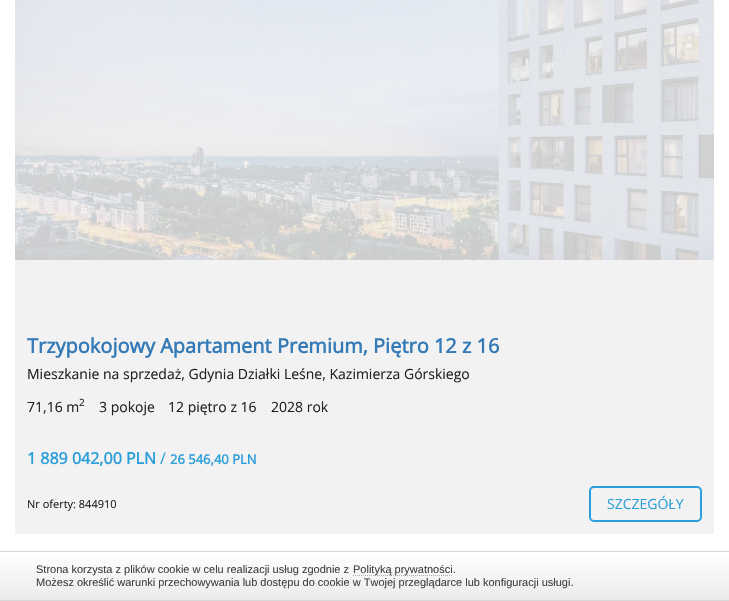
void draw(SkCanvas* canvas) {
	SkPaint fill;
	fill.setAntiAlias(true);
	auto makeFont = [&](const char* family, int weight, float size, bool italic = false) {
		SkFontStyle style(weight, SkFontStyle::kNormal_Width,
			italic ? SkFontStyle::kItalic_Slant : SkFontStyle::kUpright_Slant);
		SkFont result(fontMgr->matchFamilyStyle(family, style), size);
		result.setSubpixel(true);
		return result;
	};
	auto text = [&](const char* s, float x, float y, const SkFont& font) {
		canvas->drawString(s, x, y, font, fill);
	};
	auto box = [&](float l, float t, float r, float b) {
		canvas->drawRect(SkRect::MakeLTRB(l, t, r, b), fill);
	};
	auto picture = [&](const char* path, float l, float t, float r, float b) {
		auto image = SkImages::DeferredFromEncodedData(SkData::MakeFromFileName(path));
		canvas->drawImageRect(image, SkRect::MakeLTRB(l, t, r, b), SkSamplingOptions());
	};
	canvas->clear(0xFFFFFFFF);
	fill.setColor(0xFFF2F2F2);
	box(15, 0, 714, 534);
	picture("image0.png", 15, 0, 714, 260);
	fill.setStyle(SkPaint::kStroke_Style);
	fill.setStrokeWidth(2);
	fill.setColor(0xFF2B9FD9);
	canvas->drawRoundRect(SkRect::MakeLTRB(590, 487, 701, 521), 4, 4, fill);
	fill.setStyle(SkPaint::kFill_Style);
	{
		const SkColor colors[] = {0xFFFFFFFF, 0xFFEBEBEB};
		const float stops[] = {0, 1};
		const SkPoint ends[] = {{365, 552}, {365, 600}};
		fill.setShader(SkGradientShader::MakeLinear(ends, colors, stops, 2, SkTileMode::kClamp));
		fill.setAlpha(255);
	}
	box(0, 558, 729, 600);
	fill.setShader(nullptr);
	fill.setColor(0xFFD7D7D7);
	box(0, 551, 729, 552);
	box(0, 600, 729, 601);
	fill.setStyle(SkPaint::kStroke_Style);
	fill.setStrokeWidth(1);
	fill.setColor(0xFFAEAEAE);
	fill.setPathEffect(SkDashPathEffect::Make({{1, 1}}, 0));
	canvas->drawPath(SkPathBuilder().moveTo(353, 575.5f).lineTo(452, 575.5f).detach(), fill);
	fill.setPathEffect(nullptr);
	auto font1 = makeFont("Open Sans", 700, 20);
	fill.setStyle(SkPaint::kFill_Style);
	fill.setColor(0xFF337AB7);
	text("Trzypokojowy Apartament Premium, Piętro 12 z 16", 27, 353, font1);
	auto font2 = makeFont("Open Sans", 400, 14);
	fill.setColor(0xFF222222);
	text("Mieszkanie na sprzedaż, Gdynia Działki Leśne, Kazimierza Górskiego", 27, 379, font2);
	text("71,16 m", 27, 412, font2);
	auto font3 = makeFont("Open Sans", 400, 10);
	text("2", 79, 406, font3);
	text("3 pokoje", 99, 412, font2);
	text("12 piętro z 16", 168, 412, font2);
	text("2028 rok", 271, 412, font2);
	auto font4 = makeFont("Open Sans", 700, 16);
	fill.setColor(0xFF2B9FD9);
	text("1 889 042,00 PLN", 27, 464, font4);
	auto font5 = makeFont("Open Sans", 400, 16);
	text("/", 160, 464, font5);
	auto font6 = makeFont("Open Sans", 700, 13);
	text("26 546,40 PLN", 170, 464, font6);
	auto font7 = makeFont("Open Sans", 400, 11);
	fill.setColor(0xFF222222);
	text("Nr oferty: 844910", 27, 508, font7);
	fill.setColor(0xFF2B9FD9);
	text("SZCZEGÓŁY", 607, 509, font2);
	auto font8 = makeFont("Liberation Sans", 400, 11);
	fill.setColor(0xFF414141);
	text("Strona korzysta z plików cookie w celu realizacji usług zgodnie z", 36, 573, font8);
	text("Polityką prywatności.", 353, 573, font8);
	text("Możesz określić warunki przechowywania lub dostępu do cookie w Twojej przeglądarce lub konfiguracji usługi.", 36, 586, font8);
}
